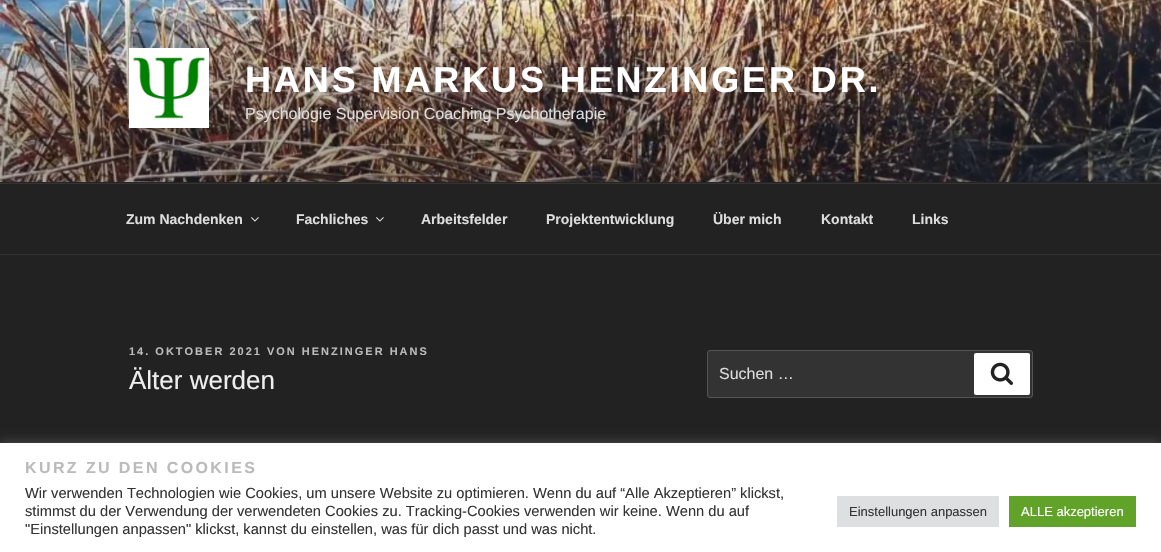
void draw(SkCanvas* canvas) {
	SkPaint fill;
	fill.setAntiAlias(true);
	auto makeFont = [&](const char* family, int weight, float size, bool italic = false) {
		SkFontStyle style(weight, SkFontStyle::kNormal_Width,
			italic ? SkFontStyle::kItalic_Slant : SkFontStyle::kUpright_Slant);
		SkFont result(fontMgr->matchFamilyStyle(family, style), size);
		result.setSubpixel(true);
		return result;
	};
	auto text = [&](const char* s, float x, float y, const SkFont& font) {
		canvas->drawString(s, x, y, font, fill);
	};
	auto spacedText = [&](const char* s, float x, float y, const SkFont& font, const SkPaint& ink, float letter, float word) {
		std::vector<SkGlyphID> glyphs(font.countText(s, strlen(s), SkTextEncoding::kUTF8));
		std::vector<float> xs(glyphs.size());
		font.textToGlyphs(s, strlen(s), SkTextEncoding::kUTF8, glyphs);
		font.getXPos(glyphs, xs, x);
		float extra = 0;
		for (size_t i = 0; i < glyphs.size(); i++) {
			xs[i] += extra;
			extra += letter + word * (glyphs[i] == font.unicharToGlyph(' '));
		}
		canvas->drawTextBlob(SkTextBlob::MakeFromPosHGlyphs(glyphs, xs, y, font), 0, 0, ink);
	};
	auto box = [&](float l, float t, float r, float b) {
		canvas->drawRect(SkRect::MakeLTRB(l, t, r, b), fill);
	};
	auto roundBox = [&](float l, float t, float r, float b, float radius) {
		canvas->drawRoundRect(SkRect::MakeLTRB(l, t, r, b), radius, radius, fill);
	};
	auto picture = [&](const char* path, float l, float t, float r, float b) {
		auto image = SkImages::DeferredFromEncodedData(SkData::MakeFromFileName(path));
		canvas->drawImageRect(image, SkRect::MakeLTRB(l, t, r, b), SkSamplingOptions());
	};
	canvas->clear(0xFF222222);
	fill.setColor(0xFF262626);
	box(0, 182, 1161, 183);
	picture("image0.png", 0, 0, 1161, 182);
	picture("image1.png", 129, 48, 209, 128);
	fill.setColor(0xFF333333);
	box(0, 183, 1161, 184);
	box(0, 254, 1161, 255);
	picture("image2.png", 251, 217, 259, 222);
	picture("image2.png", 376, 217, 384, 222);
	canvas->drawRoundRect(SkRect::MakeLTRB(707.5f, 350.5f, 1032.5f, 397.5f), 2.5f, 2.5f, fill);
	fill.setStyle(SkPaint::kStroke_Style);
	fill.setStrokeWidth(1);
	fill.setColor(0xFF555555);
	canvas->drawRoundRect(SkRect::MakeLTRB(707.5f, 350.5f, 1032.5f, 397.5f), 2.5f, 2.5f, fill);
	fill.setStyle(SkPaint::kFill_Style);
	fill.setColor(0xFFFFFFFF);
	roundBox(974, 353, 1030, 395, 2);
	picture("image3.png", 990, 362, 1013, 385);
	fill.setColor(0x4DACABAB);
	fill.setMaskFilter(SkMaskFilter::MakeBlur(kNormal_SkBlurStyle, 5));
	canvas->drawRect(SkRect::MakeLTRB(0, 442, 1161, 551), fill);
	fill.setMaskFilter(nullptr);
	fill.setColor(0xFFFFFFFF);
	box(0, 443, 1161, 552);
	fill.setColor(0xFFDEDFE0);
	box(837, 496, 999, 527);
	fill.setColor(0xFF61A229);
	box(1009, 496, 1136, 527);
	auto font1 = makeFont("Liberation Sans", 700, 36);
	fill.setColor(0xFFFFFFFF);
	spacedText("HANS MARKUS HENZINGER DR.", 245, 92, font1, fill, 2.9f, 0);
	auto font2 = makeFont("Liberation Sans", 400, 16);
	fill.setColor(0xFFDDDDDD);
	text("Psychologie Supervision Coaching Psychotherapie", 245, 119, font2);
	auto font3 = makeFont("Liberation Sans", 700, 14);
	text("Zum Nachdenken", 126, 224, font3);
	text("Fachliches", 296, 224, font3);
	text("Arbeitsfelder", 421, 224, font3);
	text("Projektentwicklung", 546, 224, font3);
	text("Über mich", 713, 224, font3);
	text("Kontakt", 821, 224, font3);
	text("Links", 912, 224, font3);
	auto font4 = makeFont("Liberation Sans", 700, 11);
	fill.setColor(0xFFBBBBBB);
	spacedText("14. OKTOBER 2021 VON HENZINGER HANS", 129, 355, font4, fill, 2, 0);
	auto font5 = makeFont("Liberation Sans", 400, 26);
	fill.setColor(0xFFEEEEEE);
	text("Älter werden", 129, 389, font5);
	fill.setColor(0xFFDDDDDD);
	text("Suchen …", 719, 379, font2);
	auto font6 = makeFont("Liberation Sans", 700, 16);
	fill.setColor(0xFFBBBBBB);
	spacedText("KURZ ZU DEN COOKIES", 25, 473, font6, fill, 2.4f, 0);
	auto font7 = makeFont("Liberation Sans", 400, 14.67f);
	fill.setColor(0xFF333333);
	text("Wir verwenden Technologien wie Cookies, um unsere Website zu optimieren. Wenn du auf “Alle Akzeptieren” klickst,", 25, 498, font7);
	text("stimmst du der Verwendung der verwendeten Cookies zu. Tracking-Cookies verwenden wir keine. Wenn du auf", 25, 516, font7);
	text("\"Einstellungen anpassen\" klickst, kannst du einstellen, was für dich passt und was nicht.", 25, 534, font7);
	auto font8 = makeFont("Liberation Sans", 400, 13);
	text("Einstellungen anpassen", 849, 516, font8);
	fill.setColor(0xFFFFFFFF);
	text("ALLE akzeptieren", 1021, 516, font8);
}
